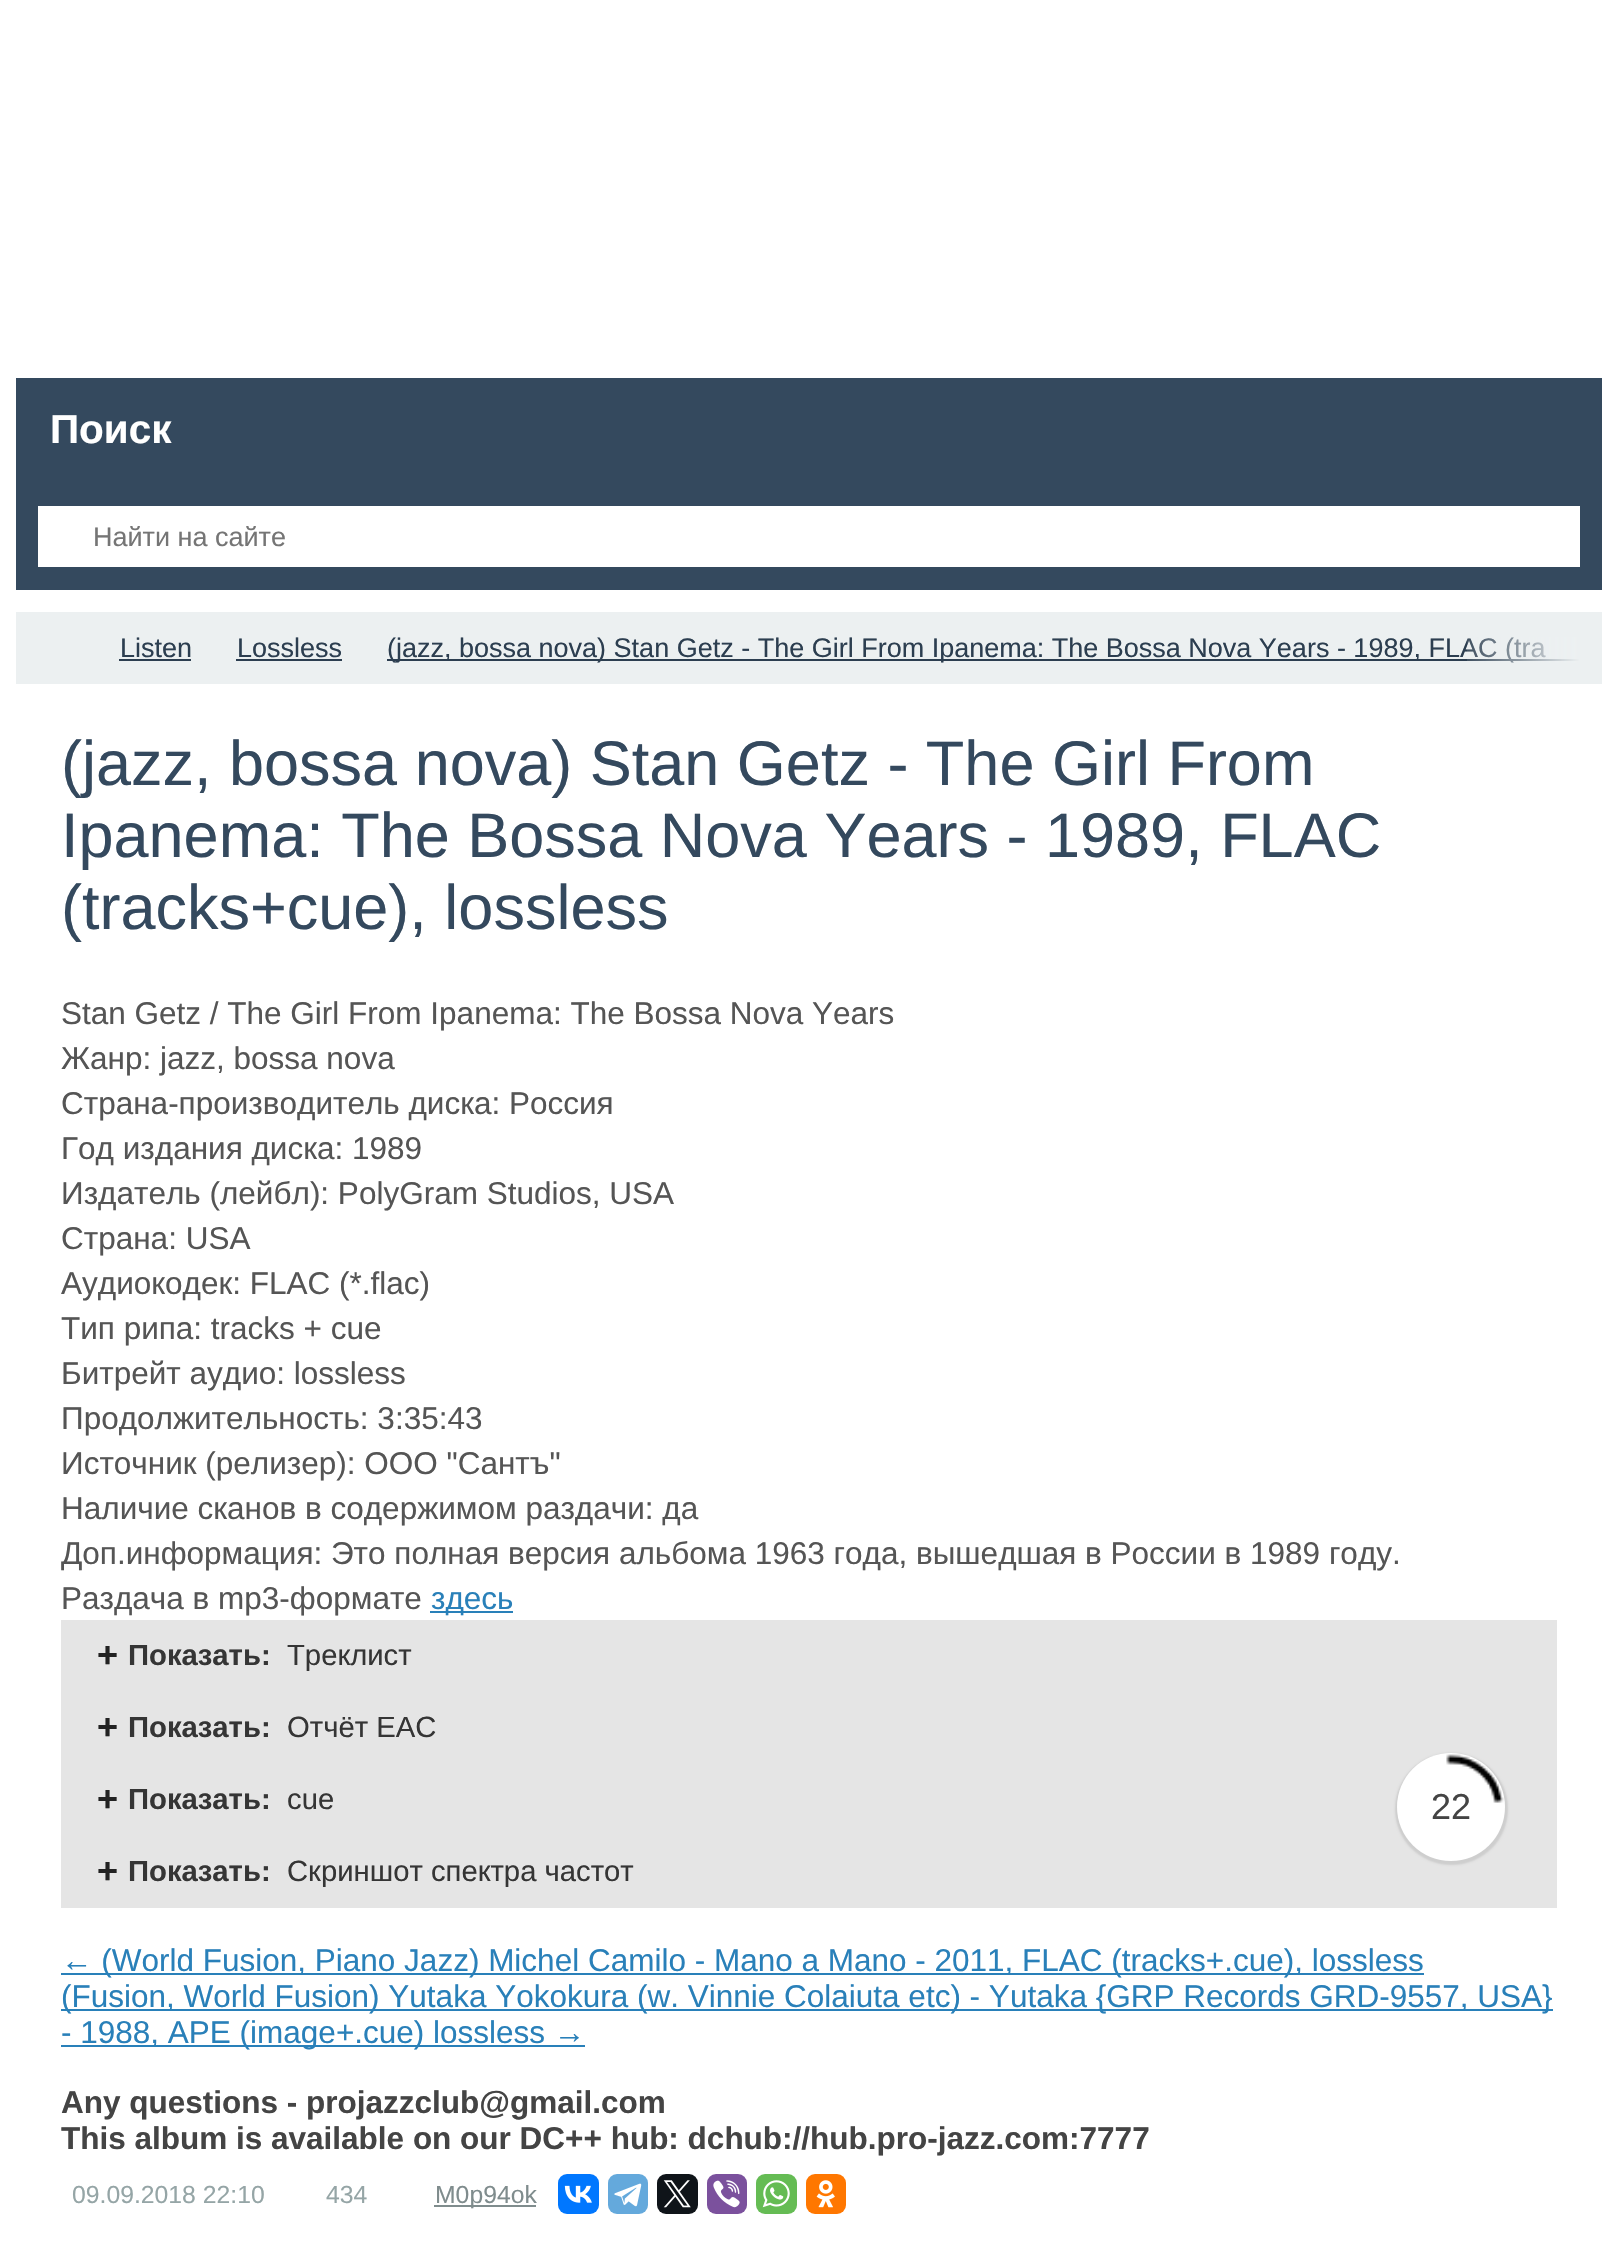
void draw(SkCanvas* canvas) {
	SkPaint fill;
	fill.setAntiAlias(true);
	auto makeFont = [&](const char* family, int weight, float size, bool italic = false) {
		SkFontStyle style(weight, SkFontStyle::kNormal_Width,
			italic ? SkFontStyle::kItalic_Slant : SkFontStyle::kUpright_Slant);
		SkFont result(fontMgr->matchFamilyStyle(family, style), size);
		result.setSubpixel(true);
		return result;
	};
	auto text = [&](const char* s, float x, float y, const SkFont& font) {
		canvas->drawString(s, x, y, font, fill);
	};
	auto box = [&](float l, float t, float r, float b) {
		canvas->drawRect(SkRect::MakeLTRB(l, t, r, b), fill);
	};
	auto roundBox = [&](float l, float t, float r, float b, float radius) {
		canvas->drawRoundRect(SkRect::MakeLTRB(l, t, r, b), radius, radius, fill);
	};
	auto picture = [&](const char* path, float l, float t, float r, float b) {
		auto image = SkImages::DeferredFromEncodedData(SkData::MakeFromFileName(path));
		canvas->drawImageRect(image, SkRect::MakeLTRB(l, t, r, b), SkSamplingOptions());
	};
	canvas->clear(0xFFFFFFFF);
	fill.setColor(0xFF34495E);
	box(16, 378, 1602, 590);
	fill.setColor(0xFFFFFFFF);
	box(38, 506, 1580, 567);
	fill.setColor(0xFFECF0F1);
	box(16, 612, 1602, 684);
	fill.setColor(0xFF2C3E50);
	box(119, 659, 191, 661);
	box(236, 659, 342, 661);
	box(387, 659, 1580, 661);
	fill.setColor(0xFF2980B9);
	box(430, 1611, 513, 1613);
	fill.setStyle(SkPaint::kStroke_Style);
	fill.setStrokeWidth(2);
	fill.setColor(0xFFE5E5E5);
	canvas->drawRect(SkRect::MakeLTRB(62, 1621, 1556, 1691), fill);
	fill.setStyle(SkPaint::kFill_Style);
	box(63, 1622, 1555, 1690);
	fill.setStyle(SkPaint::kStroke_Style);
	canvas->drawRect(SkRect::MakeLTRB(62, 1693, 1556, 1763), fill);
	fill.setStyle(SkPaint::kFill_Style);
	box(63, 1694, 1555, 1762);
	fill.setStyle(SkPaint::kStroke_Style);
	canvas->drawRect(SkRect::MakeLTRB(62, 1765, 1556, 1835), fill);
	fill.setStyle(SkPaint::kFill_Style);
	box(63, 1766, 1555, 1834);
	fill.setStyle(SkPaint::kStroke_Style);
	canvas->drawRect(SkRect::MakeLTRB(62, 1837, 1556, 1907), fill);
	fill.setStyle(SkPaint::kFill_Style);
	box(63, 1838, 1555, 1906);
	fill.setColor(0xFF2980B9);
	box(61, 1973, 1424, 1975);
	box(61, 2009, 1553, 2011);
	box(61, 2045, 585, 2047);
	fill.setColor(0xFF7F8C8D);
	box(434, 2205, 536, 2207);
	fill.setColor(0xFF0077FF);
	roundBox(558, 2174, 599, 2214, 9);
	picture("image0.png", 564, 2185, 592, 2203);
	fill.setColor(0xFF64A9DC);
	roundBox(608, 2174, 648, 2214, 9);
	picture("image1.png", 614, 2183, 642, 2207);
	fill.setColor(0xFF0F1419);
	roundBox(657, 2174, 698, 2214, 9);
	picture("image2.png", 663, 2180, 691, 2208);
	fill.setColor(0xFF7B519D);
	roundBox(707, 2174, 747, 2214, 9);
	picture("image3.png", 713, 2180, 740, 2208);
	fill.setColor(0xFF65BC54);
	roundBox(756, 2174, 797, 2214, 9);
	picture("image4.png", 762, 2180, 790, 2208);
	fill.setColor(0xFFFF7700);
	roundBox(806, 2174, 846, 2214, 9);
	picture("image5.png", 816, 2180, 835, 2208);
	fill.setColor(0x1A000000);
	fill.setMaskFilter(SkMaskFilter::MakeBlur(kNormal_SkBlurStyle, 1));
	canvas->drawRoundRect(SkRect::MakeLTRB(1395, 1753, 1508, 1865), 56, 56, fill);
	fill.setMaskFilter(nullptr);
	fill.setColor(0xFFFFFFFF);
	canvas->drawCircle(1451, 1807, 54, fill);
	picture("image6.png", 1446, 1754, 1504, 1803);
	auto font1 = makeFont("Liberation Sans", 700, 40.5f);
	text("Поиск", 50, 443, font1);
	auto font2 = makeFont("Liberation Sans", 400, 27);
	fill.setColor(0xFF757575);
	text("Найти на сайте", 93, 546, font2);
	fill.setColor(0xFF2C3E50);
	text("Listen", 120, 657, font2);
	text("Lossless", 237, 657, font2);
	text("(jazz, bossa nova) Stan Getz - The Girl From Ipanema: The Bossa Nova Years - 1989, FLAC (tra", 387, 657, font2);
	{
		const SkColor colors[] = {0x1AECF0F1, 0xFFECF0F1};
		const float stops[] = {0, 1};
		const SkPoint ends[] = {{1467, 648}, {1580, 648}};
		fill.setShader(SkGradientShader::MakeLinear(ends, colors, stops, 2, SkTileMode::kClamp));
		fill.setAlpha(255);
	}
	box(1467, 637, 1580, 663);
	auto font3 = makeFont("Liberation Sans", 400, 63);
	fill.setShader(nullptr);
	fill.setColor(0xFF34495E);
	text("(jazz, bossa nova) Stan Getz - The Girl From", 61, 785, font3);
	text("Ipanema: The Bossa Nova Years - 1989, FLAC", 61, 857, font3);
	text("(tracks+cue), lossless", 61, 929, font3);
	auto font4 = makeFont("Liberation Sans", 400, 31.5f);
	fill.setColor(0xFF555555);
	text("Stan Getz / The Girl From Ipanema: The Bossa Nova Years", 61, 1024, font4);
	text("Жанр: jazz, bossa nova", 61, 1069, font4);
	text("Страна-производитель диска: Россия", 61, 1114, font4);
	text("Год издания диска: 1989", 61, 1159, font4);
	text("Издатель (лейбл): PolyGram Studios, USA", 61, 1204, font4);
	text("Страна: USA", 61, 1249, font4);
	text("Аудиокодек: FLAC (*.flac)", 61, 1294, font4);
	text("Тип рипа: tracks + cue", 61, 1339, font4);
	text("Битрейт аудио: lossless", 61, 1384, font4);
	text("Продолжительность: 3:35:43", 61, 1429, font4);
	text("Источник (релизер): ООО \"Сантъ\"", 61, 1474, font4);
	text("Наличие сканов в содержимом раздачи: да", 61, 1519, font4);
	text("Доп.информация: Это полная версия альбома 1963 года, вышедшая в России в 1989 году.", 61, 1564, font4);
	text("Раздача в mp3-формате", 61, 1609, font4);
	fill.setColor(0xFF2980B9);
	text("здесь", 431, 1609, font4);
	auto font5 = makeFont("Liberation Sans", 700, 36);
	fill.setColor(0xFF222222);
	text("+", 97, 1667, font5);
	auto font6 = makeFont("Liberation Sans", 700, 29.25f);
	fill.setColor(0xFF353535);
	text("Показать:", 128, 1665, font6);
	auto font7 = makeFont("Liberation Sans", 400, 29.25f);
	text("Треклист", 287, 1665, font7);
	fill.setColor(0xFF222222);
	text("+", 97, 1739, font5);
	fill.setColor(0xFF353535);
	text("Показать:", 128, 1737, font6);
	text("Отчёт EAC", 287, 1737, font7);
	fill.setColor(0xFF222222);
	text("+", 97, 1811, font5);
	fill.setColor(0xFF353535);
	text("Показать:", 128, 1809, font6);
	text("cue", 287, 1809, font7);
	fill.setColor(0xFF222222);
	text("+", 97, 1883, font5);
	fill.setColor(0xFF353535);
	text("Показать:", 128, 1881, font6);
	text("Скриншот спектра частот", 287, 1881, font7);
	fill.setColor(0xFF2980B9);
	text("← (World Fusion, Piano Jazz) Michel Camilo - Mano a Mano - 2011, FLAC (tracks+.cue), lossless", 61, 1971, font4);
	text("(Fusion, World Fusion) Yutaka Yokokura (w. Vinnie Colaiuta etc) - Yutaka {GRP Records GRD-9557, USA}", 61, 2007, font4);
	text("- 1988, APE (image+.cue) lossless →", 61, 2043, font4);
	auto font8 = makeFont("Liberation Sans", 700, 31.5f);
	fill.setColor(0xFF444444);
	text("Any questions - projazzclub@gmail.com", 61, 2113, font8);
	text("This album is available on our DC++ hub: dchub://hub.pro-jazz.com:7777", 61, 2149, font8);
	auto font9 = makeFont("Liberation Sans", 400, 24.75f);
	fill.setColor(0xFF95A5A6);
	text("09.09.2018 22:10", 72, 2203, font9);
	text("434", 326, 2203, font9);
	fill.setColor(0xFF7F8C8D);
	text("M0p94ok", 435, 2203, font9);
	auto font10 = makeFont("Liberation Sans", 400, 36);
	fill.setColor(0xFF444444);
	text("22", 1431, 1819, font10);
}
